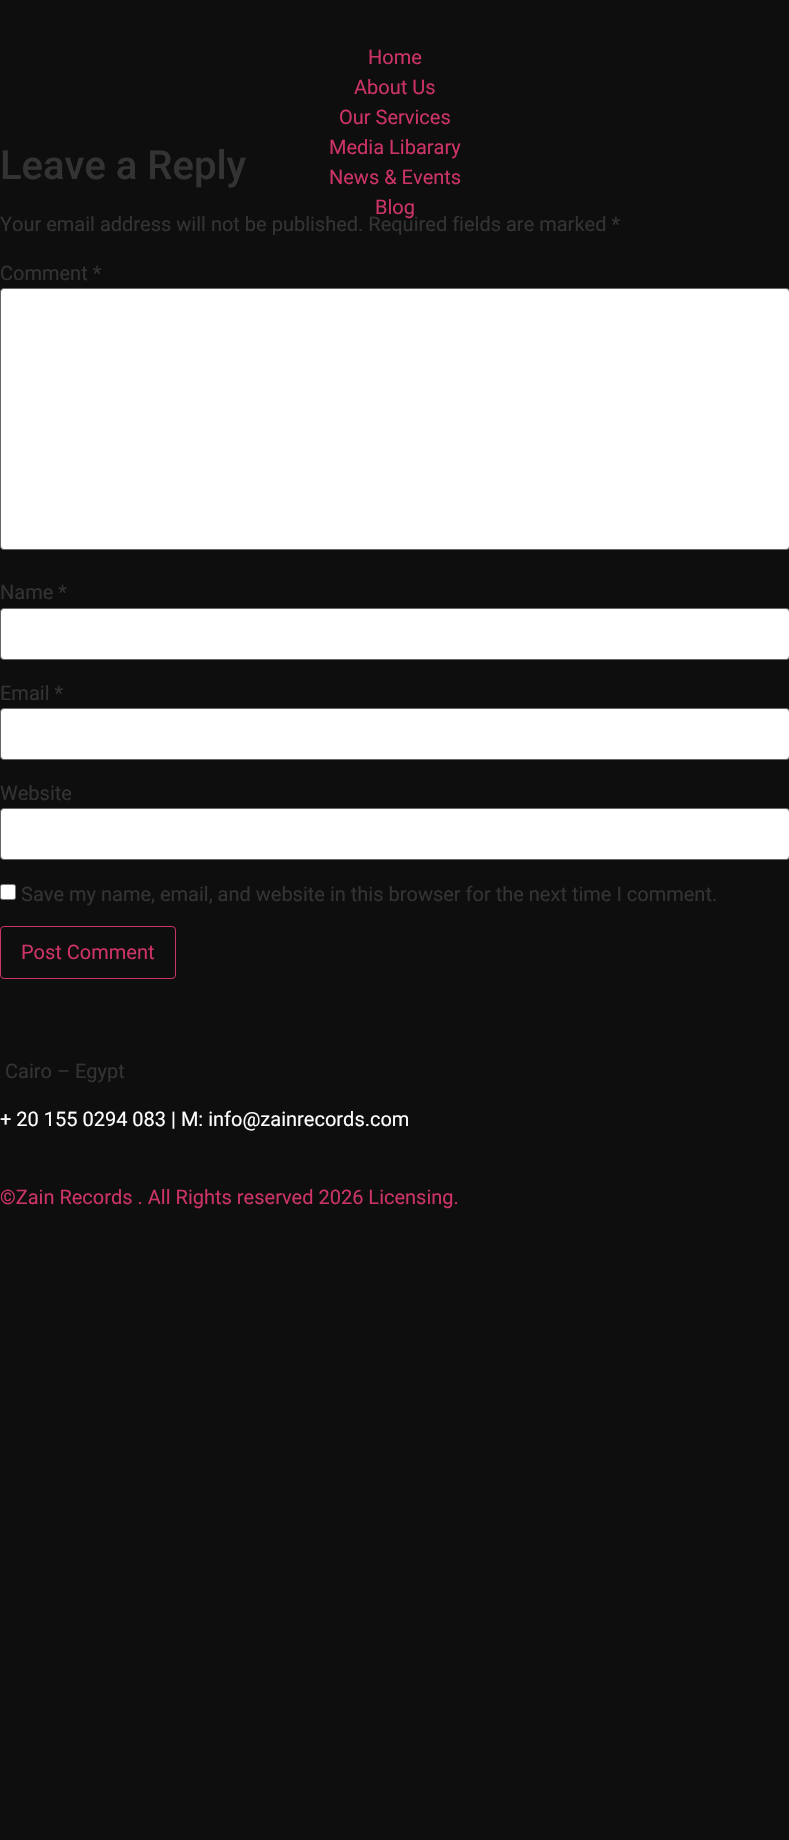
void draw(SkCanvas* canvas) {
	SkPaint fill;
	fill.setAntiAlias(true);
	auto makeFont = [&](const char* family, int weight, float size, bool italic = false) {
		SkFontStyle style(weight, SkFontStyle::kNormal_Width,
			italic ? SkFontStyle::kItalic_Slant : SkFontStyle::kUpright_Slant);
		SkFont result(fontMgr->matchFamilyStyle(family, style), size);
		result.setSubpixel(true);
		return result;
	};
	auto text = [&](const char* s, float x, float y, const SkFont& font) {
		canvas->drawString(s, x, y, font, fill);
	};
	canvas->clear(0xFF0E0E0E);
	fill.setColor(0xFFFFFFFF);
	canvas->drawRoundRect(SkRect::MakeLTRB(0.5f, 288.5f, 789.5f, 549.5f), 3.5f, 3.5f, fill);
	fill.setStyle(SkPaint::kStroke_Style);
	fill.setStrokeWidth(1);
	fill.setColor(0xFF666666);
	canvas->drawRoundRect(SkRect::MakeLTRB(0.5f, 288.5f, 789.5f, 549.5f), 3.5f, 3.5f, fill);
	fill.setStyle(SkPaint::kFill_Style);
	fill.setColor(0xFFFFFFFF);
	canvas->drawRoundRect(SkRect::MakeLTRB(0.5f, 608.5f, 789.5f, 659.5f), 3.5f, 3.5f, fill);
	fill.setStyle(SkPaint::kStroke_Style);
	fill.setColor(0xFF666666);
	canvas->drawRoundRect(SkRect::MakeLTRB(0.5f, 608.5f, 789.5f, 659.5f), 3.5f, 3.5f, fill);
	fill.setStyle(SkPaint::kFill_Style);
	fill.setColor(0xFFFFFFFF);
	canvas->drawRoundRect(SkRect::MakeLTRB(0.5f, 708.5f, 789.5f, 759.5f), 3.5f, 3.5f, fill);
	fill.setStyle(SkPaint::kStroke_Style);
	fill.setColor(0xFF666666);
	canvas->drawRoundRect(SkRect::MakeLTRB(0.5f, 708.5f, 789.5f, 759.5f), 3.5f, 3.5f, fill);
	fill.setStyle(SkPaint::kFill_Style);
	fill.setColor(0xFFFFFFFF);
	canvas->drawRoundRect(SkRect::MakeLTRB(0.5f, 808.5f, 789.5f, 859.5f), 3.5f, 3.5f, fill);
	fill.setStyle(SkPaint::kStroke_Style);
	fill.setColor(0xFF666666);
	canvas->drawRoundRect(SkRect::MakeLTRB(0.5f, 808.5f, 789.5f, 859.5f), 3.5f, 3.5f, fill);
	fill.setStyle(SkPaint::kFill_Style);
	fill.setColor(0xFFFFFFFF);
	canvas->drawRoundRect(SkRect::MakeLTRB(0.5f, 884.5f, 15.5f, 899.5f), 2, 2, fill);
	fill.setStyle(SkPaint::kStroke_Style);
	fill.setColor(0xFF767676);
	canvas->drawRoundRect(SkRect::MakeLTRB(0.5f, 884.5f, 15.5f, 899.5f), 2, 2, fill);
	fill.setColor(0xFFCC3366);
	canvas->drawRoundRect(SkRect::MakeLTRB(0.5f, 926.5f, 175.5f, 978.5f), 3.5f, 3.5f, fill);
	auto font1 = makeFont("Roboto", 400, 20);
	fill.setStyle(SkPaint::kFill_Style);
	text("Home", 368, 64, font1);
	text("About Us", 354, 94, font1);
	text("Our Services", 339, 124, font1);
	text("Media Libarary", 329, 154, font1);
	text("News & Events", 329, 184, font1);
	text("Blog", 375, 214, font1);
	auto font2 = makeFont("Roboto", 500, 40);
	fill.setColor(0xFF333333);
	text("Leave a Reply", 0, 179, font2);
	text("Your email address will not be published. Required fields are marked *", 0, 231, font1);
	text("Comment *", 0, 280, font1);
	text("Name *", 0, 599, font1);
	text("Email *", 0, 700, font1);
	text("Website", 0, 800, font1);
	text("Save my name, email, and website in this browser for the next time I comment.", 21, 901, font1);
	fill.setColor(0xFFCC3366);
	text("Post Comment", 21, 959, font1);
	fill.setColor(0xFF333333);
	text("Cairo – Egypt", 5, 1078, font1);
	fill.setColor(0xFFFFFFFF);
	text("+ 20 155 0294 083 | M: info@zainrecords.com", 0, 1126, font1);
	fill.setColor(0xFFCC3366);
	text("©Zain Records . All Rights reserved 2026 Licensing.", 0, 1204, font1);
}
